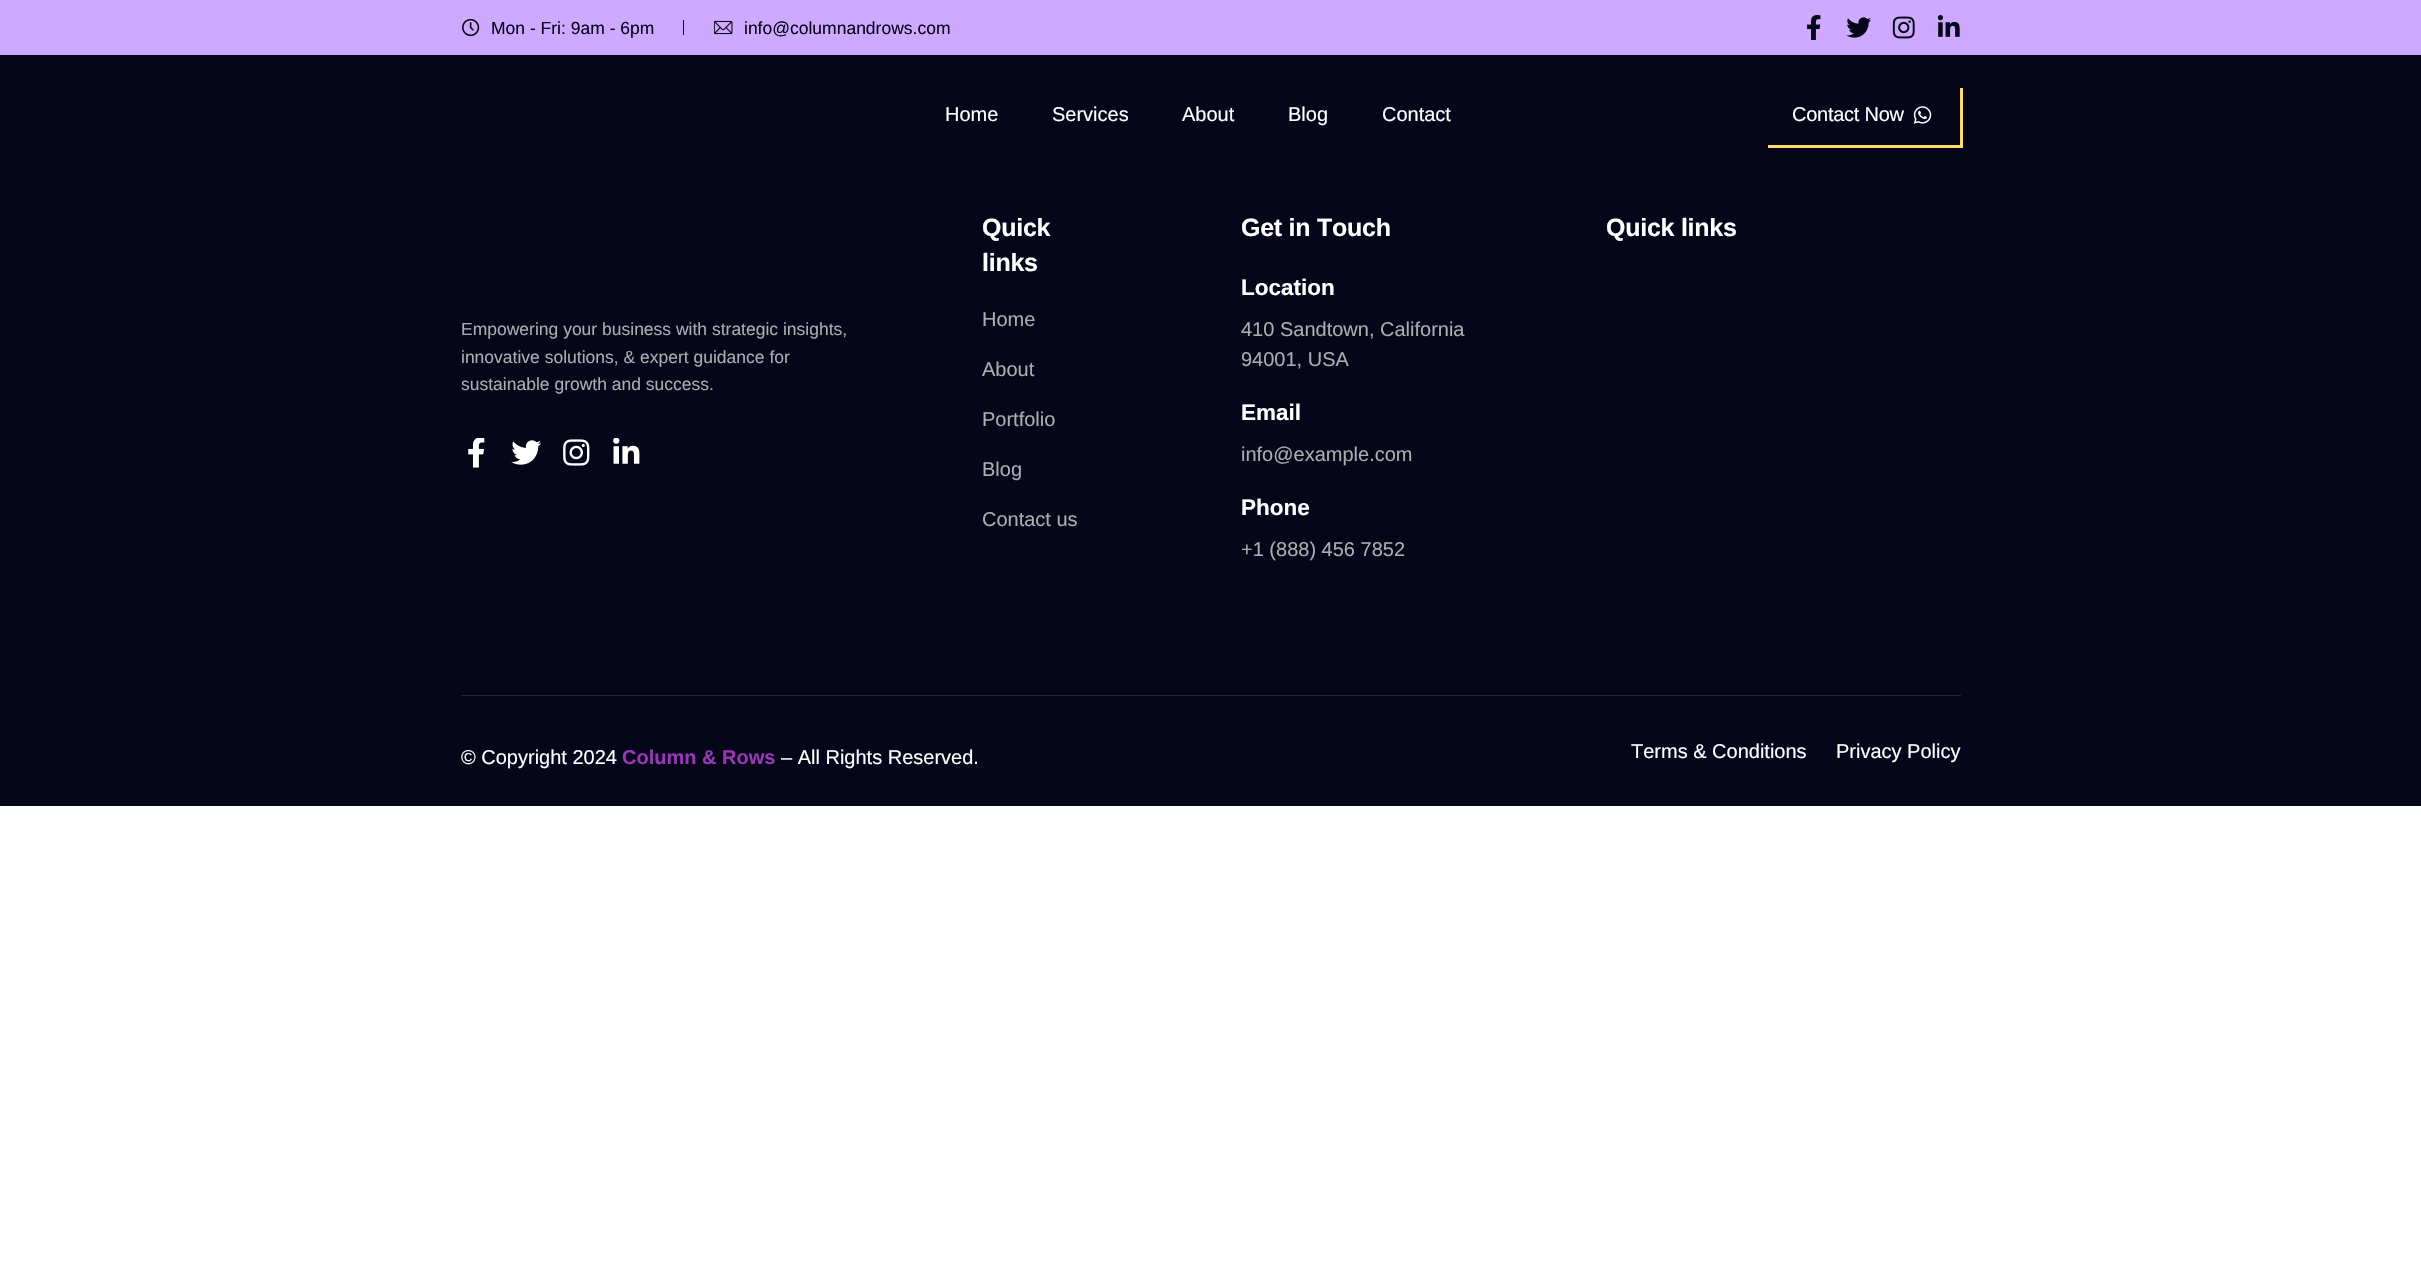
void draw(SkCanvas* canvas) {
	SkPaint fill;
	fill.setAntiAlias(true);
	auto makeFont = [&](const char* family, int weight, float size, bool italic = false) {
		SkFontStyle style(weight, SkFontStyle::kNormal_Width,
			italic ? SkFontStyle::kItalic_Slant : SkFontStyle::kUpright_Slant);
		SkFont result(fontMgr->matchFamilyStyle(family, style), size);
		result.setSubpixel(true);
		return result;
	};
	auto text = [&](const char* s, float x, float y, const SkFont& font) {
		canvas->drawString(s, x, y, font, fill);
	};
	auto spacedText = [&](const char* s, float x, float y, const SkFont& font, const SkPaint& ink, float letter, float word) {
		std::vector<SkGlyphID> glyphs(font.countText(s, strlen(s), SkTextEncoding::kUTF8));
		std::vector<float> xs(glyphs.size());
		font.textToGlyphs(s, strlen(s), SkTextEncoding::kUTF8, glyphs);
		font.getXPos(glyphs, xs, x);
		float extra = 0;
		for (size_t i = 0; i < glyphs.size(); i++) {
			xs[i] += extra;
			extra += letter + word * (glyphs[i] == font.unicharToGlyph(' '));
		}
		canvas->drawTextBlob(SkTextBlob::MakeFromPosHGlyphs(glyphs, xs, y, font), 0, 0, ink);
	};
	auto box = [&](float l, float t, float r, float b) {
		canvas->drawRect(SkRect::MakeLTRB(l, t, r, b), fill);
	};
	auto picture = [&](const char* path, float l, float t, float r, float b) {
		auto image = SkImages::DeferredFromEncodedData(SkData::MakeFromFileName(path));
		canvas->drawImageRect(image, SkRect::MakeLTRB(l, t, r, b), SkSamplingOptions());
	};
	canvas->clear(0xFFFFFFFF);
	fill.setColor(0xFFCFA9FF);
	box(0, 0, 2421, 55);
	picture("image0.png", 462, 18, 480, 37);
	fill.setColor(0xFF05061A);
	box(683, 20, 684, 35);
	picture("image1.png", 714, 20, 733, 35);
	picture("image2.png", 1807, 15, 1821, 40);
	picture("image3.png", 1846, 17, 1871, 38);
	picture("image4.png", 1892, 16, 1915, 39);
	picture("image5.png", 1937, 15, 1960, 37);
	box(0, 55, 2421, 806);
	fill.setColor(0xFFFEDE65);
	canvas->drawPath(SkPathBuilder().moveTo(1768, 145).lineTo(1768, 148).lineTo(1963, 148).lineTo(1963, 88).lineTo(1960, 88).lineTo(1960, 145).close().detach(), fill);
	picture("image6.png", 1913, 106, 1932, 124);
	picture("image7.png", 468, 438, 485, 468);
	picture("image8.png", 511, 440, 541, 465);
	picture("image9.png", 563, 439, 590, 466);
	picture("image10.png", 613, 438, 640, 464);
	fill.setColor(0xFF232435);
	box(461, 695, 1961, 696);
	auto font1 = makeFont("Liberation Sans", 400, 17.5f);
	fill.setColor(0xFF05061A);
	text("Mon - Fri: 9am - 6pm", 491, 34, font1);
	text("info@columnandrows.com", 744, 34, font1);
	auto font2 = makeFont("Liberation Sans", 400, 20);
	fill.setColor(0xFFFFFFFF);
	text("Home", 945, 121, font2);
	text("Services", 1052, 121, font2);
	text("About", 1182, 121, font2);
	text("Blog", 1288, 121, font2);
	text("Contact", 1382, 121, font2);
	spacedText("Contact Now", 1792, 121, font2, fill, -0.25f, 0);
	fill.setColor(0xFFADADAD);
	text("Empowering your business with strategic insights,", 461, 335, font1);
	text("innovative solutions, & expert guidance for", 461, 363, font1);
	text("sustainable growth and success.", 461, 390, font1);
	auto font3 = makeFont("Liberation Sans", 700, 25);
	fill.setColor(0xFFFFFFFF);
	spacedText("Quick", 982, 236, font3, fill, -0.25f, 0);
	spacedText("links", 982, 271, font3, fill, -0.25f, 0);
	fill.setColor(0xFFADADAD);
	text("Home", 982, 326, font2);
	text("About", 982, 376, font2);
	text("Portfolio", 982, 426, font2);
	text("Blog", 982, 476, font2);
	text("Contact us", 982, 526, font2);
	fill.setColor(0xFFFFFFFF);
	spacedText("Get in Touch", 1241, 236, font3, fill, -0.25f, 0);
	auto font4 = makeFont("Liberation Sans", 700, 22.5f);
	text("Location", 1241, 295, font4);
	fill.setColor(0xFFADADAD);
	text("410 Sandtown, California", 1241, 336, font2);
	text("94001, USA", 1241, 366, font2);
	fill.setColor(0xFFFFFFFF);
	text("Email", 1241, 420, font4);
	fill.setColor(0xFFADADAD);
	text("info@example.com", 1241, 461, font2);
	fill.setColor(0xFFFFFFFF);
	text("Phone", 1241, 515, font4);
	fill.setColor(0xFFADADAD);
	text("+1 (888) 456 7852", 1241, 556, font2);
	fill.setColor(0xFFFFFFFF);
	spacedText("Quick links", 1606, 236, font3, fill, -0.25f, 0);
	text("© Copyright 2024", 461, 764, font2);
	auto font5 = makeFont("Liberation Sans", 700, 20);
	fill.setColor(0xFF9937B7);
	text("Column & Rows", 622, 764, font5);
	fill.setColor(0xFFFFFFFF);
	text("– All Rights Reserved.", 781, 764, font2);
	text("Terms & Conditions", 1631, 758, font2);
	text("Privacy Policy", 1836, 758, font2);
}
